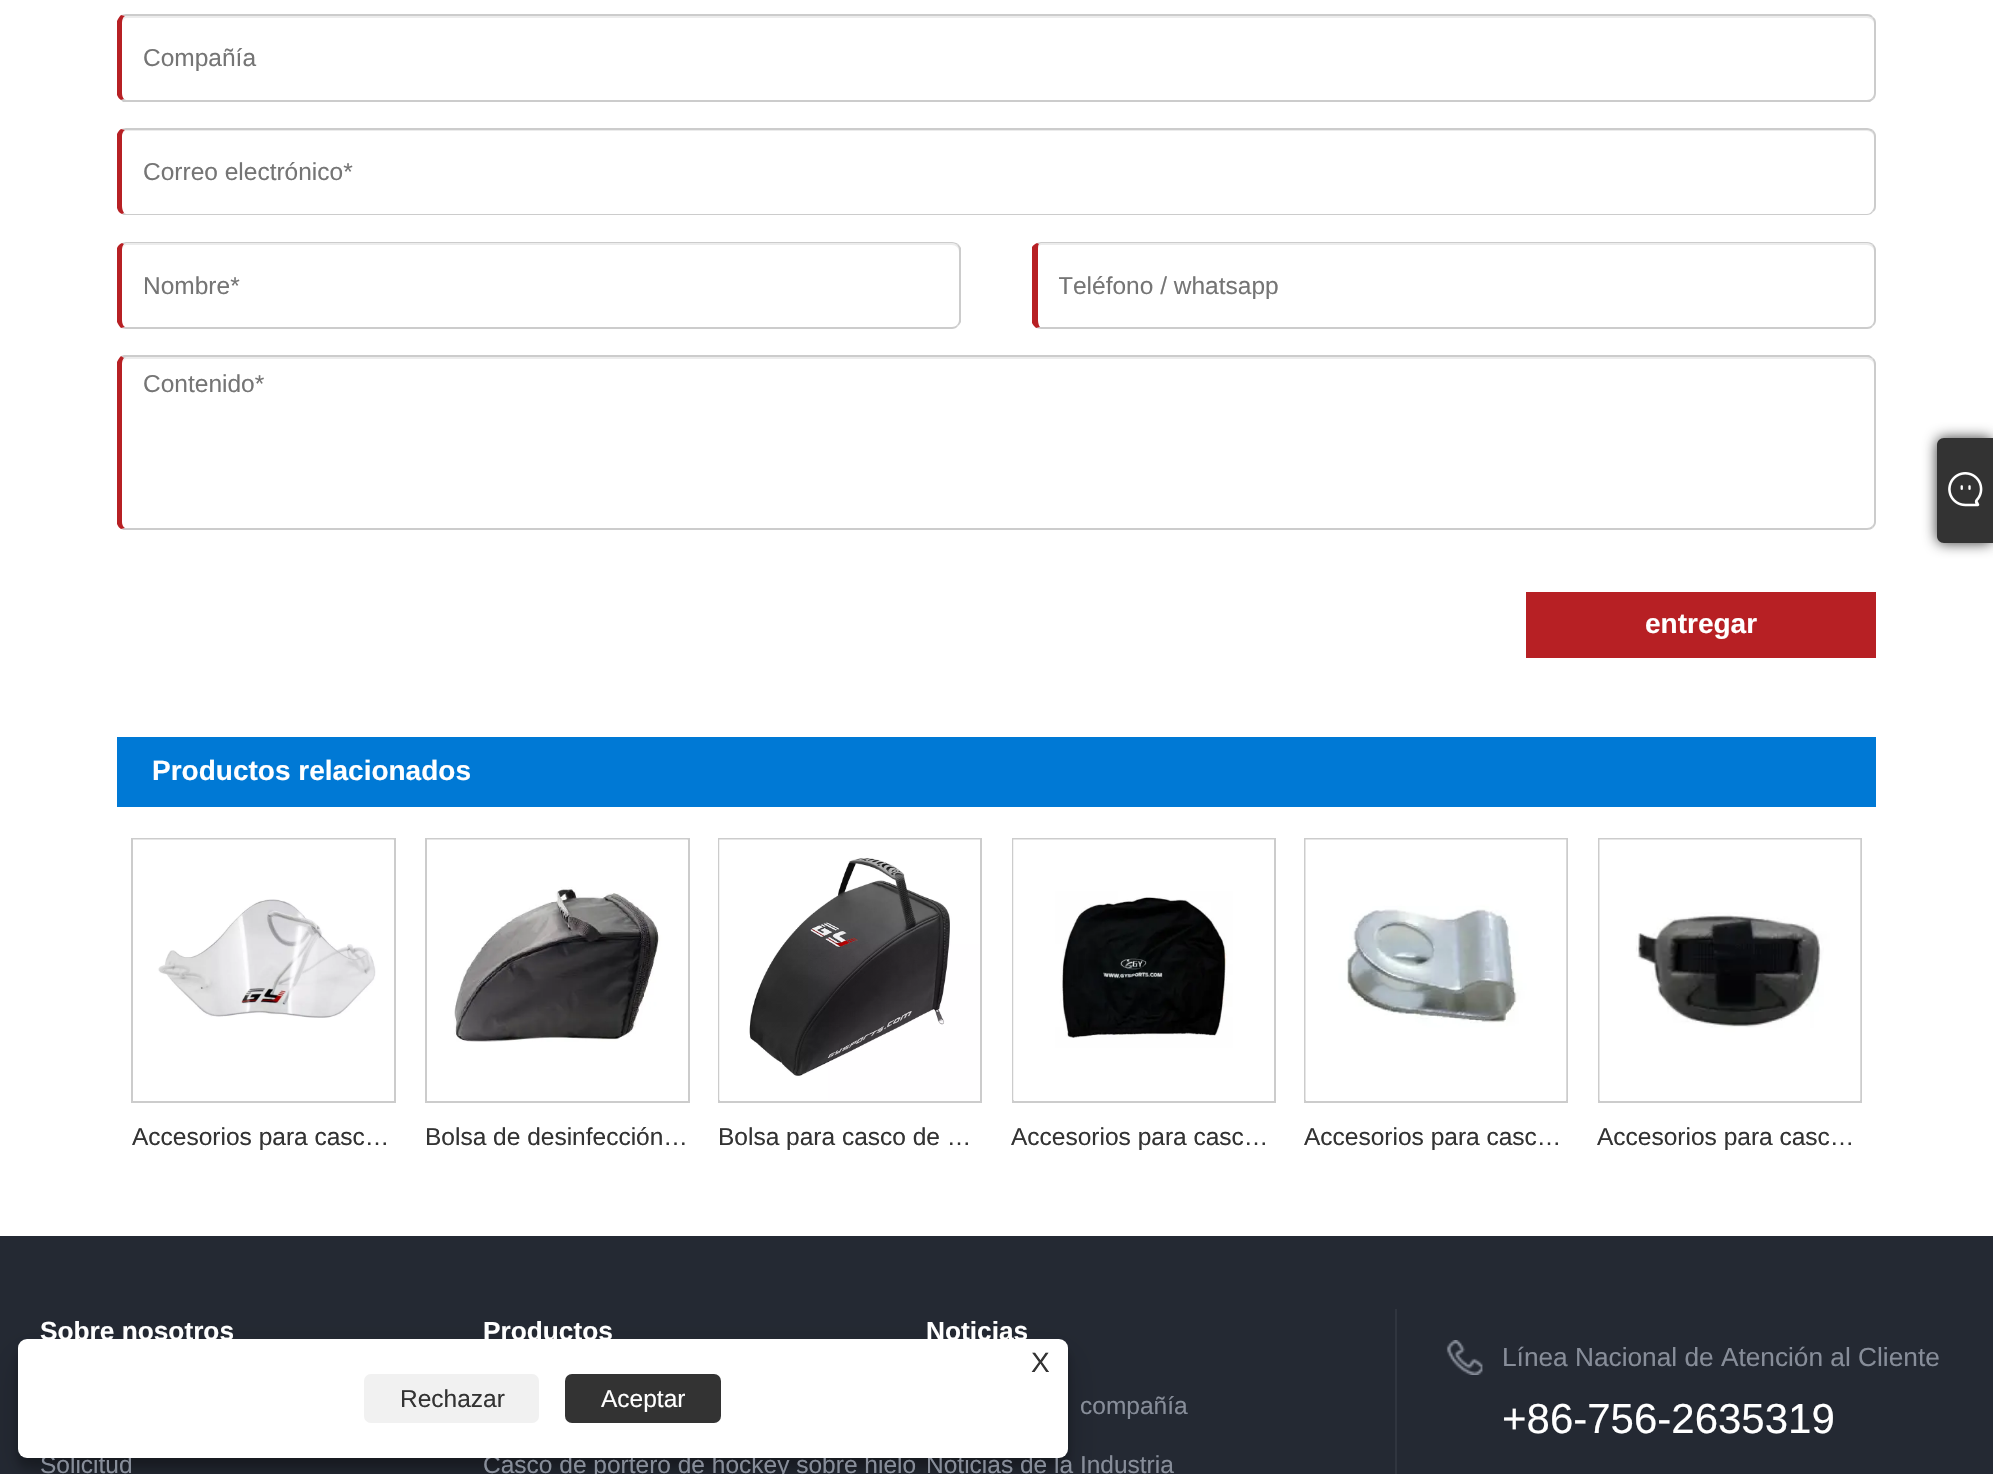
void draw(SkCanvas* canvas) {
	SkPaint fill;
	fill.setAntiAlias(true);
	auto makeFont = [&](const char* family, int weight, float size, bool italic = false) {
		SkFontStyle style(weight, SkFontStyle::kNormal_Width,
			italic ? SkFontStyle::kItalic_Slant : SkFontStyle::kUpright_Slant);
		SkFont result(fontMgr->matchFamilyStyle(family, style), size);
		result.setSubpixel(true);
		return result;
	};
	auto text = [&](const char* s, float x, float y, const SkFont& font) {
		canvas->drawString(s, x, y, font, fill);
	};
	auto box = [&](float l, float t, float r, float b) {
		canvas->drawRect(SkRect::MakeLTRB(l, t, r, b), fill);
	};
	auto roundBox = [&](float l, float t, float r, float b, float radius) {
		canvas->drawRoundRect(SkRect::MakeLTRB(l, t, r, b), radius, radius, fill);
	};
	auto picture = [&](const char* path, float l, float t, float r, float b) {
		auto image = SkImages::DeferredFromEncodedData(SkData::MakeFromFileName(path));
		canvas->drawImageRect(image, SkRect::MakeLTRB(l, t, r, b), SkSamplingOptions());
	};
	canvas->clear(0xFFFFFFFF);
	fill.setColor(0xFFECECEC);
	canvas->drawPath(SkPathBuilder().moveTo(126, 18).lineTo(1867, 18).cubicTo(1871, 18, 1874, 21, 1874, 24).lineTo(1874, 95).lineTo(1874, 23).cubicTo(1874, 19, 1871, 16, 1867, 16).lineTo(126, 16).cubicTo(124, 16, 123, 18, 123, 21).cubicTo(123, 19, 125, 18, 126, 18).close().detach(), fill);
	fill.setColor(0xFFCCCCCC);
	canvas->drawPath(SkPathBuilder().moveTo(126, 14).lineTo(121, 15).lineTo(125, 16).lineTo(126, 16).lineTo(1867, 16).cubicTo(1869, 16, 1871, 17, 1872, 18).lineTo(1873, 17).cubicTo(1872, 15, 1870, 14, 1867, 14).close().detach(), fill);
	canvas->drawPath(SkPathBuilder().moveTo(1876, 93).lineTo(1876, 23).cubicTo(1876, 20, 1875, 18, 1873, 17).lineTo(1872, 18).cubicTo(1873, 19, 1874, 21, 1874, 23).lineTo(1874, 93).cubicTo(1874, 95, 1873, 97, 1872, 98).lineTo(1874, 99).cubicTo(1875, 98, 1876, 95, 1876, 93).close().detach(), fill);
	canvas->drawPath(SkPathBuilder().moveTo(123, 102).lineTo(121, 100).lineTo(124, 99).lineTo(126, 100).lineTo(1867, 100).cubicTo(1869, 100, 1871, 99, 1872, 98).lineTo(1874, 99).lineTo(1870, 102).close().detach(), fill);
	fill.setColor(0xFFB72024);
	canvas->drawPath(SkPathBuilder().moveTo(117, 21).cubicTo(118, 19, 119, 17, 121, 15).lineTo(125, 16).cubicTo(123, 17, 122, 20, 122, 23).lineTo(122, 93).cubicTo(122, 96, 123, 98, 124, 99).lineTo(121, 100).cubicTo(119, 99, 118, 97, 117, 95).close().detach(), fill);
	fill.setColor(0xFFECECEC);
	canvas->drawPath(SkPathBuilder().moveTo(126, 131).lineTo(1867, 131).cubicTo(1871, 131, 1874, 134, 1874, 138).lineTo(1874, 208).lineTo(1874, 136).cubicTo(1874, 133, 1871, 130, 1867, 130).lineTo(126, 130).cubicTo(124, 130, 123, 131, 123, 134).cubicTo(123, 132, 125, 131, 126, 131).close().detach(), fill);
	fill.setColor(0xFFCCCCCC);
	canvas->drawPath(SkPathBuilder().moveTo(126, 128).lineTo(121, 129).lineTo(125, 130).lineTo(1867, 130).cubicTo(1869, 130, 1871, 131, 1872, 132).lineTo(1873, 130).cubicTo(1872, 129, 1869, 128, 1867, 128).close().detach(), fill);
	canvas->drawPath(SkPathBuilder().moveTo(1873, 130).cubicTo(1875, 132, 1876, 134, 1876, 136).lineTo(1876, 206).cubicTo(1876, 209, 1875, 211, 1873, 212).lineTo(1872, 211).cubicTo(1873, 210, 1874, 208, 1874, 206).lineTo(1874, 136).cubicTo(1874, 134, 1873, 133, 1872, 132).close().detach(), fill);
	canvas->drawPath(SkPathBuilder().moveTo(1873, 212).cubicTo(1872, 214, 1869, 215, 1867, 215).lineTo(126, 215).cubicTo(124, 215, 123, 215, 122, 214).lineTo(124, 213).lineTo(126, 214).lineTo(1867, 214).cubicTo(1869, 214, 1871, 213, 1872, 211).close().detach(), fill);
	fill.setColor(0xFFB72024);
	canvas->drawPath(SkPathBuilder().moveTo(117, 134).cubicTo(118, 132, 119, 130, 121, 129).lineTo(125, 130).cubicTo(123, 131, 122, 134, 122, 136).lineTo(122, 206).cubicTo(122, 209, 123, 211, 124, 213).lineTo(122, 214).cubicTo(119, 213, 118, 211, 117, 208).close().detach(), fill);
	fill.setColor(0xFFECECEC);
	canvas->drawPath(SkPathBuilder().moveTo(126, 245).lineTo(952, 245).cubicTo(956, 245, 959, 248, 959, 252).lineTo(959, 250).cubicTo(959, 246, 956, 243, 952, 243).lineTo(126, 243).cubicTo(124, 243, 123, 245, 123, 248).cubicTo(123, 246, 125, 245, 126, 245).close().detach(), fill);
	fill.setColor(0xFFCCCCCC);
	canvas->drawPath(SkPathBuilder().moveTo(126, 242).lineTo(122, 243).lineTo(124, 244).lineTo(126, 243).lineTo(952, 243).cubicTo(954, 243, 956, 244, 957, 245).lineTo(958, 244).cubicTo(957, 243, 954, 242, 952, 242).close().detach(), fill);
	canvas->drawPath(SkPathBuilder().moveTo(958, 244).cubicTo(959, 245, 960, 246, 961, 248).lineTo(961, 322).cubicTo(960, 324, 959, 325, 958, 326).lineTo(957, 325).cubicTo(958, 324, 959, 322, 959, 320).lineTo(959, 250).cubicTo(959, 248, 958, 246, 957, 245).close().detach(), fill);
	canvas->drawPath(SkPathBuilder().moveTo(126, 329).lineTo(952, 329).cubicTo(954, 329, 957, 328, 958, 326).lineTo(957, 325).cubicTo(956, 326, 954, 327, 952, 327).lineTo(126, 327).lineTo(125, 327).lineTo(121, 328).close().detach(), fill);
	fill.setColor(0xFFB72024);
	canvas->drawPath(SkPathBuilder().moveTo(117, 248).cubicTo(118, 246, 119, 244, 122, 243).lineTo(124, 244).cubicTo(123, 245, 122, 247, 122, 250).lineTo(122, 320).cubicTo(122, 323, 123, 326, 125, 327).lineTo(121, 328).cubicTo(119, 326, 118, 324, 117, 322).close().detach(), fill);
	fill.setColor(0xFFECECEC);
	canvas->drawPath(SkPathBuilder().moveTo(1041, 245).lineTo(1867, 245).cubicTo(1871, 245, 1874, 248, 1874, 252).lineTo(1874, 322).lineTo(1874, 250).cubicTo(1874, 246, 1871, 243, 1867, 243).lineTo(1041, 243).cubicTo(1039, 243, 1038, 246, 1038, 250).lineTo(1038, 323).lineTo(1038, 252).cubicTo(1038, 250, 1038, 245, 1041, 245).close().detach(), fill);
	fill.setColor(0xFFCCCCCC);
	canvas->drawPath(SkPathBuilder().moveTo(1041, 242).lineTo(1037, 243).lineTo(1039, 244).lineTo(1041, 243).lineTo(1867, 243).cubicTo(1869, 243, 1871, 244, 1872, 245).lineTo(1873, 244).cubicTo(1872, 243, 1870, 242, 1867, 242).close().detach(), fill);
	canvas->drawPath(SkPathBuilder().moveTo(1873, 244).cubicTo(1875, 246, 1876, 248, 1876, 250).lineTo(1876, 320).cubicTo(1876, 322, 1875, 325, 1873, 326).lineTo(1872, 325).cubicTo(1873, 324, 1874, 322, 1874, 320).lineTo(1874, 250).cubicTo(1874, 248, 1873, 246, 1872, 245).close().detach(), fill);
	canvas->drawPath(SkPathBuilder().moveTo(1041, 329).lineTo(1867, 329).cubicTo(1870, 329, 1872, 328, 1873, 326).lineTo(1872, 325).cubicTo(1871, 326, 1869, 327, 1867, 327).lineTo(1041, 327).lineTo(1040, 327).lineTo(1036, 328).close().detach(), fill);
	fill.setColor(0xFFB72024);
	canvas->drawPath(SkPathBuilder().moveTo(1032, 247).cubicTo(1033, 245, 1035, 244, 1037, 243).lineTo(1039, 244).cubicTo(1038, 245, 1038, 247, 1038, 250).lineTo(1038, 320).cubicTo(1038, 323, 1039, 326, 1040, 327).lineTo(1036, 328).cubicTo(1035, 327, 1033, 325, 1032, 323).close().detach(), fill);
	fill.setColor(0xFFECECEC);
	canvas->drawPath(SkPathBuilder().moveTo(126, 359).lineTo(1867, 359).cubicTo(1871, 359, 1874, 362, 1874, 366).lineTo(1874, 523).lineTo(1874, 364).cubicTo(1874, 360, 1871, 357, 1867, 357).lineTo(126, 357).cubicTo(124, 357, 123, 359, 123, 362).cubicTo(123, 360, 125, 359, 126, 359).close().detach(), fill);
	fill.setColor(0xFFCCCCCC);
	canvas->drawPath(SkPathBuilder().moveTo(126, 357).lineTo(124, 358).lineTo(121, 356).lineTo(124, 355).lineTo(1869, 355).cubicTo(1871, 356, 1872, 357, 1873, 358).lineTo(1872, 359).cubicTo(1871, 358, 1869, 357, 1867, 357).close().detach(), fill);
	canvas->drawPath(SkPathBuilder().moveTo(1876, 522).lineTo(1876, 364).cubicTo(1876, 362, 1875, 359, 1873, 358).lineTo(1872, 359).cubicTo(1873, 360, 1874, 362, 1874, 364).lineTo(1874, 522).cubicTo(1874, 524, 1873, 525, 1872, 526).lineTo(1873, 528).cubicTo(1875, 526, 1876, 524, 1876, 522).close().detach(), fill);
	canvas->drawPath(SkPathBuilder().moveTo(1873, 528).cubicTo(1872, 529, 1869, 530, 1867, 530).lineTo(126, 530).cubicTo(124, 530, 123, 530, 121, 529).lineTo(125, 528).lineTo(1867, 528).cubicTo(1869, 528, 1871, 527, 1872, 526).close().detach(), fill);
	fill.setColor(0xFFB72024);
	canvas->drawPath(SkPathBuilder().moveTo(117, 362).cubicTo(118, 360, 119, 358, 121, 356).lineTo(124, 358).cubicTo(123, 359, 122, 361, 122, 364).lineTo(122, 522).cubicTo(122, 524, 123, 527, 125, 528).lineTo(121, 529).cubicTo(119, 528, 118, 526, 117, 524).close().detach(), fill);
	box(1526, 592, 1876, 658);
	fill.setColor(0xFF0079D5);
	box(117, 737, 1876, 807);
	fill.setStyle(SkPaint::kStroke_Style);
	fill.setStrokeWidth(2);
	fill.setColor(0xFFCCCCCC);
	canvas->drawRect(SkRect::MakeLTRB(132, 839, 395, 1102), fill);
	picture("image0.png", 133, 839, 394, 1018);
	canvas->drawRect(SkRect::MakeLTRB(426, 839, 689, 1102), fill);
	picture("image1.png", 427, 839, 688, 1042);
	canvas->drawRect(SkRect::MakeLTRB(719, 839, 981, 1102), fill);
	picture("image2.png", 719, 839, 980, 1101);
	canvas->drawRect(SkRect::MakeLTRB(1013, 839, 1275, 1102), fill);
	picture("image3.png", 1013, 839, 1274, 1101);
	canvas->drawRect(SkRect::MakeLTRB(1305, 839, 1567, 1102), fill);
	picture("image4.png", 1305, 839, 1567, 1101);
	canvas->drawRect(SkRect::MakeLTRB(1599, 839, 1861, 1102), fill);
	picture("image5.png", 1599, 839, 1861, 1101);
	fill.setStyle(SkPaint::kFill_Style);
	fill.setColor(0xFF242933);
	box(0, 1236, 1993, 1474);
	fill.setColor(0xFF30353F);
	box(1395, 1309, 1397, 1474);
	picture("image6.png", 1446, 1340, 1483, 1375);
	fill.setColor(0xFF333333);
	fill.setMaskFilter(SkMaskFilter::MakeBlur(kNormal_SkBlurStyle, 7));
	canvas->drawRoundRect(SkRect::MakeLTRB(1937, 438, 1993, 543), 7, 7, fill);
	fill.setMaskFilter(nullptr);
	canvas->drawPath(SkPathBuilder().moveTo(1944, 438).lineTo(1993, 438).lineTo(1993, 543).lineTo(1944, 543).cubicTo(1940, 543, 1937, 540, 1937, 536).lineTo(1937, 445).cubicTo(1937, 441, 1940, 438, 1944, 438).close().detach(), fill);
	picture("image7.png", 1948, 472, 1983, 507);
	fill.setColor(0x3B000000);
	fill.setMaskFilter(SkMaskFilter::MakeBlur(kNormal_SkBlurStyle, 5));
	canvas->drawRoundRect(SkRect::MakeLTRB(18, 1349, 1068, 1468), 9, 9, fill);
	fill.setMaskFilter(nullptr);
	fill.setColor(0x30000000);
	fill.setMaskFilter(SkMaskFilter::MakeBlur(kNormal_SkBlurStyle, 17.5f));
	canvas->drawRoundRect(SkRect::MakeLTRB(18, 1356, 1068, 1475), 9, 9, fill);
	fill.setMaskFilter(nullptr);
	auto font1 = makeFont("Liberation Sans", 400, 24.5f);
	fill.setColor(0xFF757575);
	text("Compañía", 143, 66, font1);
	text("Correo electrónico*", 143, 180, font1);
	text("Nombre*", 143, 294, font1);
	canvas->save();
	canvas->clipRect(SkRect::MakeLTRB(1059, 271, 1853, 299));
	text("Teléfono / whatsapp", 1058, 294, font1);
	canvas->restore();
	text("Contenido*", 143, 392, font1);
	auto font2 = makeFont("Liberation Sans", 700, 28);
	fill.setColor(0xFFFFFFFF);
	text("entregar", 1645, 633, font2);
	text("Productos relacionados", 152, 780, font2);
	fill.setColor(0xFF333333);
	text("Accesorios para casc…", 132, 1145, font1);
	text("Bolsa de desinfección…", 425, 1145, font1);
	text("Bolsa para casco de …", 718, 1145, font1);
	text("Accesorios para casc…", 1011, 1145, font1);
	text("Accesorios para casc…", 1304, 1145, font1);
	text("Accesorios para casc…", 1597, 1145, font1);
	auto font3 = makeFont("Liberation Sans", 700, 26.25f);
	fill.setColor(0xFFFFFFFF);
	text("Sobre nosotros", 40, 1340, font3);
	fill.setColor(0xFF878D99);
	text("Solicitud", 40, 1473, font1);
	fill.setColor(0xFFFFFFFF);
	text("Productos", 483, 1340, font3);
	fill.setColor(0xFF878D99);
	text("Casco de portero de hockey sobre hielo", 483, 1473, font1);
	fill.setColor(0xFFFFFFFF);
	text("Noticias", 926, 1340, font3);
	fill.setColor(0xFF878D99);
	text("compañía", 1080, 1414, font1);
	text("Noticias de la Industria", 926, 1473, font1);
	auto font4 = makeFont("Liberation Sans", 400, 26.25f);
	text("Línea Nacional de Atención al Cliente", 1502, 1366, font4);
	auto font5 = makeFont("Liberation Sans", 400, 42);
	fill.setColor(0xFFFFFFFF);
	text("+86-756-2635319", 1502, 1433, font5);
	roundBox(18, 1339, 1068, 1458, 9);
	auto font6 = makeFont("Liberation Sans", 400, 28);
	fill.setColor(0xFF333333);
	text("X", 1031, 1372, font6);
	fill.setColor(0xFFF1F1F1);
	roundBox(364, 1374, 539, 1423, 7);
	fill.setColor(0xFF333333);
	text("Rechazar", 400, 1407, font1);
	roundBox(565, 1374, 721, 1423, 7);
	fill.setColor(0xFFFFFFFF);
	text("Aceptar", 601, 1407, font1);
}
